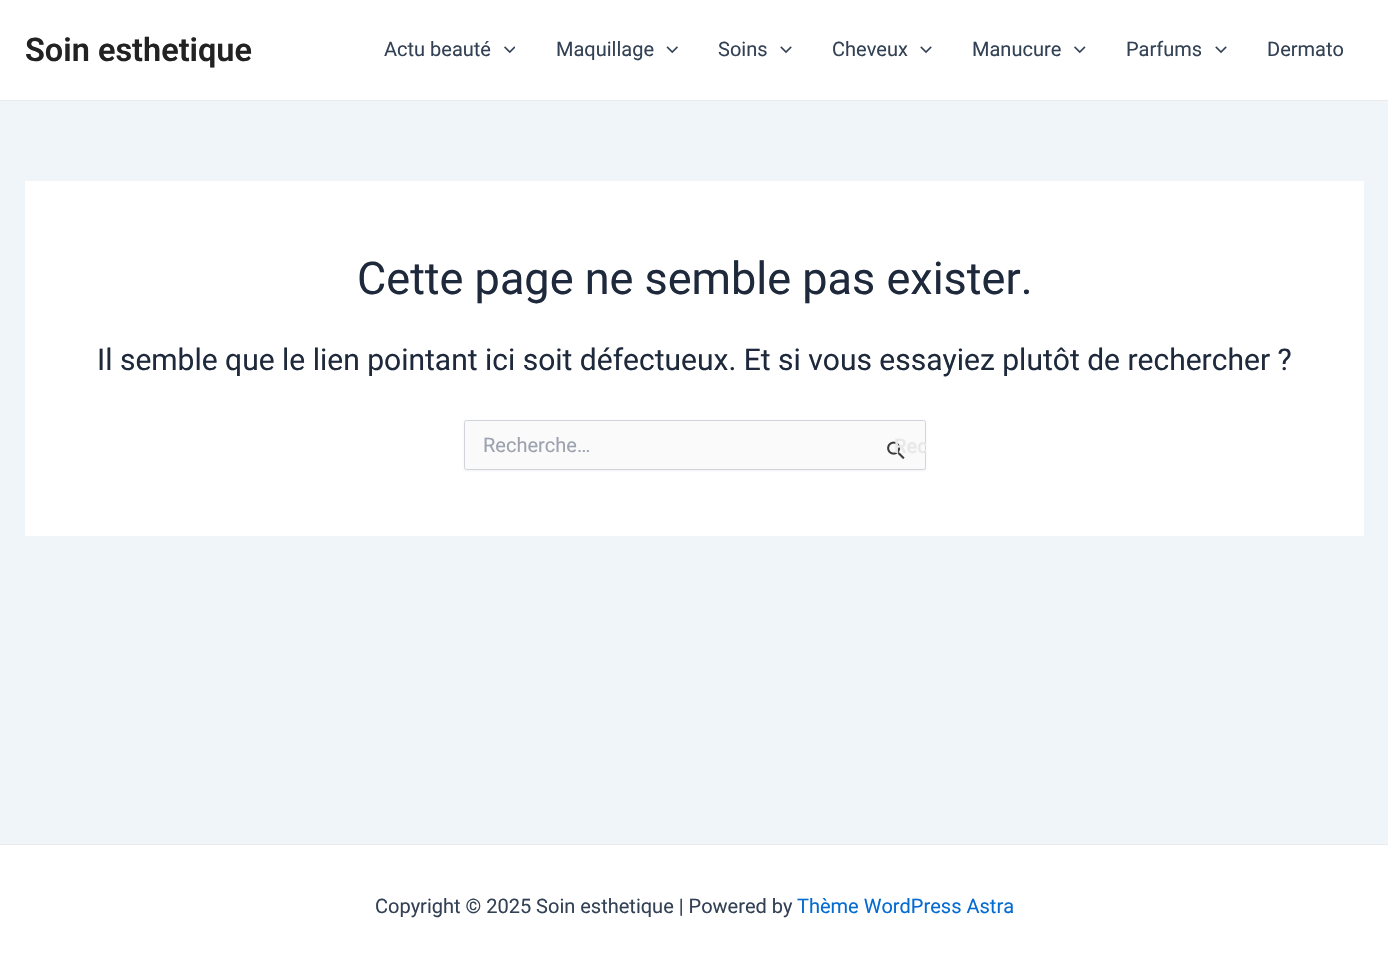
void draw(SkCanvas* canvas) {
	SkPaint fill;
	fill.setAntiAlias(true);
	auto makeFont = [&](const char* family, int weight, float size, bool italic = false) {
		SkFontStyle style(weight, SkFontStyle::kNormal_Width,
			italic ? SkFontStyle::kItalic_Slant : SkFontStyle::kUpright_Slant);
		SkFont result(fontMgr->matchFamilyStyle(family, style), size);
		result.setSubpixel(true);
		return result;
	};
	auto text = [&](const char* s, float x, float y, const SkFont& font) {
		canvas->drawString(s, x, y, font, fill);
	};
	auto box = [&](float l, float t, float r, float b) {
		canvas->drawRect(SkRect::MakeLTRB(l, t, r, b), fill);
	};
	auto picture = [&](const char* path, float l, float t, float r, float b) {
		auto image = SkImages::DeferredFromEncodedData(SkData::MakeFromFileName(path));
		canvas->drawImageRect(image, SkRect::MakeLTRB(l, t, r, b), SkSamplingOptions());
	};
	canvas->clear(0xFFF0F5FA);
	fill.setColor(0xFFFFFFFF);
	box(0, 0, 1388, 100);
	fill.setColor(0xFFEAEAEA);
	box(0, 100, 1388, 101);
	picture("image0.png", 504, 46, 515, 54);
	picture("image1.png", 666, 46, 678, 54);
	picture("image2.png", 780, 46, 792, 54);
	picture("image2.png", 920, 46, 932, 54);
	picture("image3.png", 1074, 46, 1086, 54);
	picture("image2.png", 1215, 46, 1227, 54);
	fill.setColor(0xFFFFFFFF);
	box(25, 181, 1364, 536);
	fill.setColor(0x0D000000);
	fill.setMaskFilter(SkMaskFilter::MakeBlur(kNormal_SkBlurStyle, 1));
	canvas->drawRoundRect(SkRect::MakeLTRB(464, 421, 926, 471), 2.5f, 2.5f, fill);
	fill.setMaskFilter(nullptr);
	fill.setColor(0xFFFAFAFA);
	canvas->drawRoundRect(SkRect::MakeLTRB(464.5f, 420.5f, 925.5f, 469.5f), 2, 2, fill);
	fill.setStyle(SkPaint::kStroke_Style);
	fill.setStrokeWidth(1);
	fill.setColor(0xFFD1D5DB);
	canvas->drawRoundRect(SkRect::MakeLTRB(464.5f, 420.5f, 925.5f, 469.5f), 2, 2, fill);
	picture("image4.png", 887, 441, 905, 459);
	fill.setStyle(SkPaint::kFill_Style);
	fill.setColor(0xFFFFFFFF);
	box(0, 845, 1388, 970);
	fill.setColor(0xFFEAEAEA);
	box(0, 844, 1388, 845);
	auto font1 = makeFont("Roboto", 600, 32.5f);
	fill.setColor(0xFF222222);
	text("Soin esthetique", 25, 61, font1);
	auto font2 = makeFont("Roboto", 400, 20);
	fill.setColor(0xFF334155);
	text("Actu beauté", 384, 56, font2);
	text("Maquillage", 556, 56, font2);
	text("Soins", 718, 56, font2);
	text("Cheveux", 832, 56, font2);
	text("Manucure", 972, 56, font2);
	text("Parfums", 1126, 56, font2);
	text("Dermato", 1267, 56, font2);
	auto font3 = makeFont("Roboto", 400, 45);
	fill.setColor(0xFF1E293B);
	text("Cette page ne semble pas exister.", 357, 294, font3);
	auto font4 = makeFont("Roboto", 400, 30);
	text("Il semble que le lien pointant ici soit défectueux. Et si vous essayiez plutôt de rechercher ?", 97, 370, font4);
	fill.setColor(0xFF9CA3AF);
	text("Recherche…", 483, 452, font2);
	canvas->save();
	canvas->clipPath(SkPathBuilder().moveTo(872.5f, 420).lineTo(923.5f, 420).cubicTo(925, 420, 926, 421, 926, 422.5f).lineTo(926, 470.5f).cubicTo(926, 472, 925, 473, 923.5f, 473).lineTo(872.5f, 473).cubicTo(871, 473, 870, 472, 870, 470.5f).lineTo(870, 422.5f).cubicTo(870, 421, 871, 420, 872.5f, 420).close().detach(), true);
	auto font5 = makeFont("Roboto", 500, 20);
	fill.setColor(0xFFE8E8E9);
	text("Rec", 894, 453, font5);
	canvas->restore();
	fill.setColor(0xFF334155);
	text("Copyright © 2025 Soin esthetique | Powered by", 375, 913, font2);
	fill.setColor(0xFF046BD2);
	text("Thème WordPress Astra", 797, 913, font2);
}
